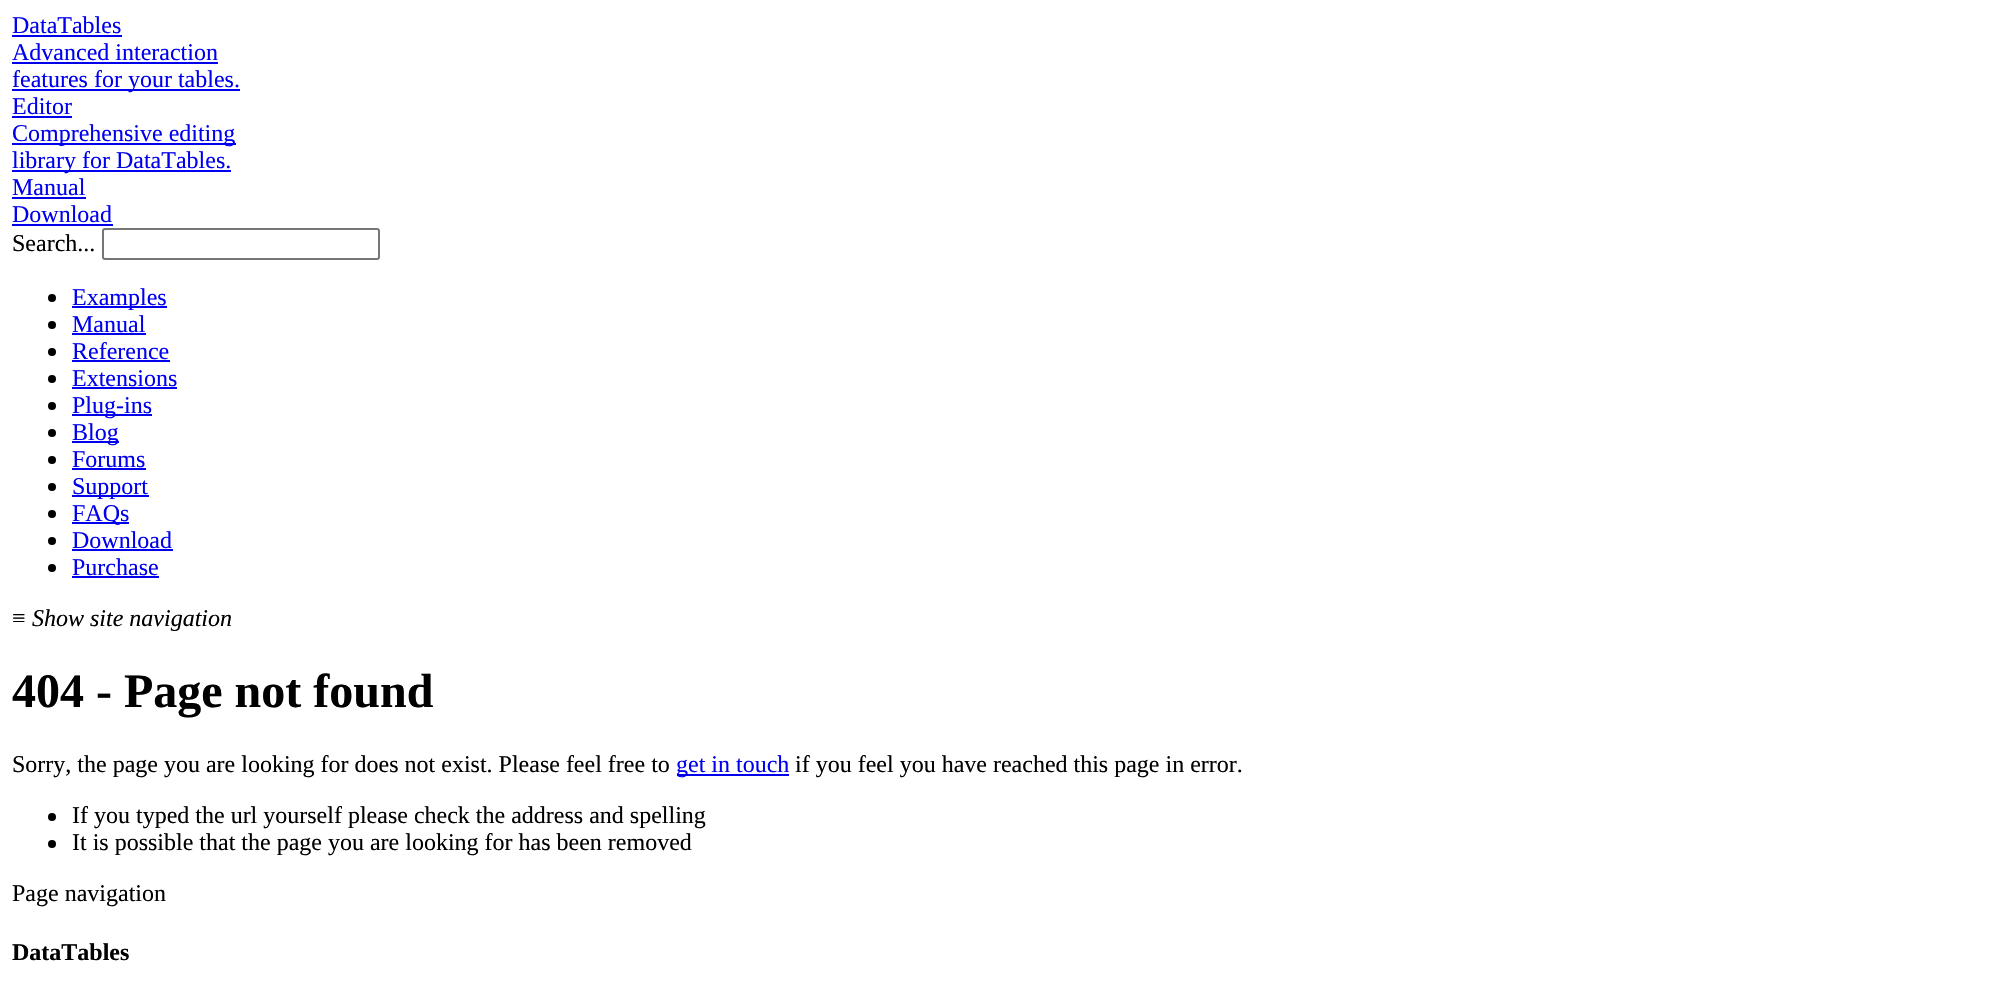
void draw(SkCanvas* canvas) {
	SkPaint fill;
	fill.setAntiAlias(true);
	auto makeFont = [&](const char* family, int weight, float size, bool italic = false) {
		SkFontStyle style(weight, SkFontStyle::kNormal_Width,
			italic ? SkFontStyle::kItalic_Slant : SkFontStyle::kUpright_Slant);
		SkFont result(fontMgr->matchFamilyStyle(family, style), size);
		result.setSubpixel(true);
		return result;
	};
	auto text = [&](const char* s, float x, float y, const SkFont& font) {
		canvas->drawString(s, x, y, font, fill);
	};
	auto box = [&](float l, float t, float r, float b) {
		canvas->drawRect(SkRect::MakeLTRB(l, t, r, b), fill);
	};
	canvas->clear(0xFFFFFFFF);
	fill.setColor(0xFF0000EE);
	box(12, 35, 122, 37);
	box(12, 62, 218, 64);
	box(12, 89, 240, 91);
	box(12, 116, 72, 118);
	box(12, 143, 236, 145);
	box(12, 170, 231, 172);
	box(12, 197, 86, 199);
	box(12, 224, 113, 226);
	fill.setStyle(SkPaint::kStroke_Style);
	fill.setStrokeWidth(2);
	fill.setColor(0xFF767676);
	canvas->drawRoundRect(SkRect::MakeLTRB(103, 229, 379, 259), 2, 2, fill);
	fill.setStyle(SkPaint::kFill_Style);
	fill.setColor(0xFF000000);
	canvas->drawCircle(52, 298, 4, fill);
	fill.setColor(0xFF0000EE);
	box(72, 306, 167, 308);
	fill.setColor(0xFF000000);
	canvas->drawCircle(52, 325, 4, fill);
	fill.setColor(0xFF0000EE);
	box(72, 333, 146, 335);
	fill.setColor(0xFF000000);
	canvas->drawCircle(52, 352, 4, fill);
	fill.setColor(0xFF0000EE);
	box(72, 360, 170, 362);
	fill.setColor(0xFF000000);
	canvas->drawCircle(52, 379, 4, fill);
	fill.setColor(0xFF0000EE);
	box(72, 387, 177, 389);
	fill.setColor(0xFF000000);
	canvas->drawCircle(52, 406, 4, fill);
	fill.setColor(0xFF0000EE);
	box(72, 414, 152, 416);
	fill.setColor(0xFF000000);
	canvas->drawCircle(52, 433, 4, fill);
	fill.setColor(0xFF0000EE);
	box(72, 441, 119, 443);
	fill.setColor(0xFF000000);
	canvas->drawCircle(52, 460, 4, fill);
	fill.setColor(0xFF0000EE);
	box(72, 468, 146, 470);
	fill.setColor(0xFF000000);
	canvas->drawCircle(52, 487, 4, fill);
	fill.setColor(0xFF0000EE);
	box(72, 495, 149, 497);
	fill.setColor(0xFF000000);
	canvas->drawCircle(52, 514, 4, fill);
	fill.setColor(0xFF0000EE);
	box(72, 522, 129, 524);
	fill.setColor(0xFF000000);
	canvas->drawCircle(52, 541, 4, fill);
	fill.setColor(0xFF0000EE);
	box(72, 549, 173, 551);
	fill.setColor(0xFF000000);
	canvas->drawCircle(52, 568, 4, fill);
	fill.setColor(0xFF0000EE);
	box(72, 576, 159, 578);
	box(677, 774, 789, 776);
	fill.setColor(0xFF000000);
	canvas->drawCircle(52, 817, 4, fill);
	canvas->drawCircle(52, 844, 4, fill);
	auto font1 = makeFont("Liberation Serif", 400, 24);
	fill.setColor(0xFF0000EE);
	text("DataTables", 12, 33, font1);
	text("Advanced interaction", 12, 60, font1);
	text("features for your tables.", 12, 87, font1);
	text("Editor", 12, 114, font1);
	text("Comprehensive editing", 12, 141, font1);
	text("library for DataTables.", 12, 168, font1);
	text("Manual", 12, 195, font1);
	text("Download", 12, 222, font1);
	fill.setColor(0xFF000000);
	text("Search...", 12, 251, font1);
	fill.setColor(0xFF0000EE);
	text("Examples", 72, 305, font1);
	text("Manual", 72, 332, font1);
	text("Reference", 72, 359, font1);
	text("Extensions", 72, 386, font1);
	text("Plug-ins", 72, 413, font1);
	text("Blog", 72, 440, font1);
	text("Forums", 72, 467, font1);
	text("Support", 72, 494, font1);
	text("FAQs", 72, 521, font1);
	text("Download", 72, 548, font1);
	text("Purchase", 72, 575, font1);
	fill.setColor(0xFF000000);
	text("≡", 12, 626, font1);
	auto font2 = makeFont("Liberation Serif", 400, 24, true);
	text("Show site navigation", 32, 626, font2);
	auto font3 = makeFont("Liberation Serif", 700, 48);
	text("404 - Page not found", 12, 707, font3);
	text("Sorry, the page you are looking for does not exist. Please feel free to", 12, 772, font1);
	fill.setColor(0xFF0000EE);
	text("get in touch", 676, 772, font1);
	fill.setColor(0xFF000000);
	text("if you feel you have reached this page in error.", 795, 772, font1);
	text("If you typed the url yourself please check the address and spelling", 72, 823, font1);
	text("It is possible that the page you are looking for has been removed", 72, 850, font1);
	text("Page navigation", 12, 901, font1);
	auto font4 = makeFont("Liberation Serif", 700, 24);
	text("DataTables", 12, 960, font4);
}
